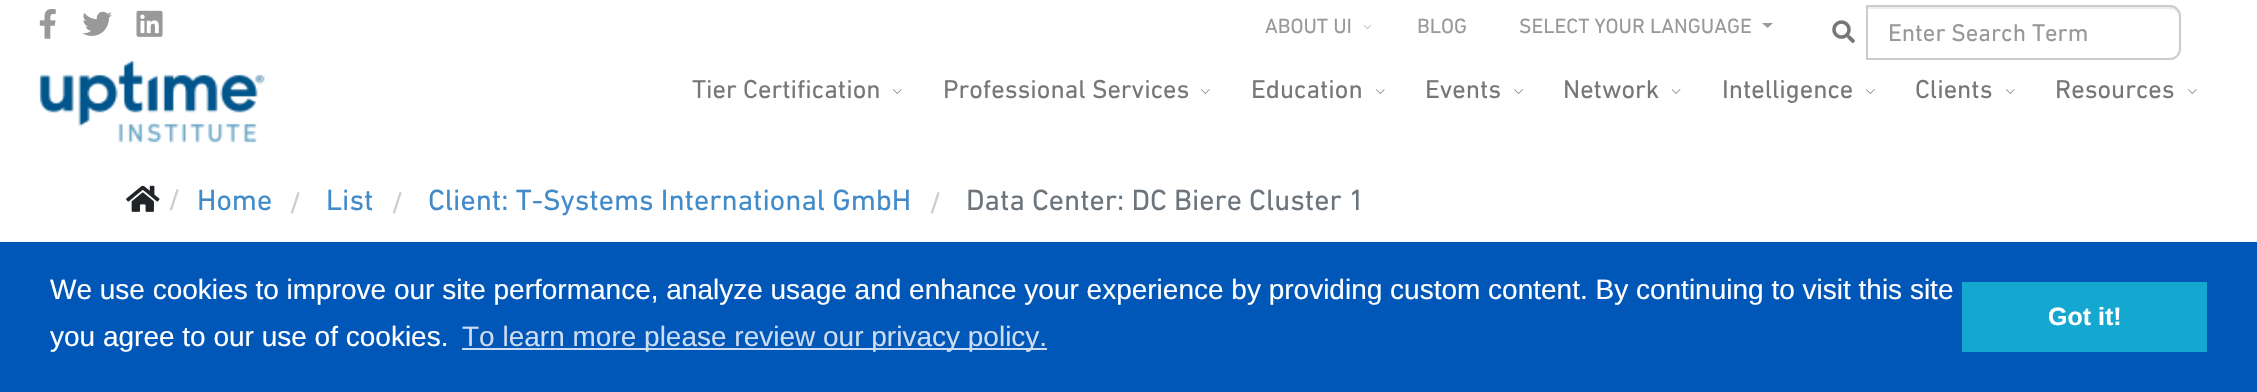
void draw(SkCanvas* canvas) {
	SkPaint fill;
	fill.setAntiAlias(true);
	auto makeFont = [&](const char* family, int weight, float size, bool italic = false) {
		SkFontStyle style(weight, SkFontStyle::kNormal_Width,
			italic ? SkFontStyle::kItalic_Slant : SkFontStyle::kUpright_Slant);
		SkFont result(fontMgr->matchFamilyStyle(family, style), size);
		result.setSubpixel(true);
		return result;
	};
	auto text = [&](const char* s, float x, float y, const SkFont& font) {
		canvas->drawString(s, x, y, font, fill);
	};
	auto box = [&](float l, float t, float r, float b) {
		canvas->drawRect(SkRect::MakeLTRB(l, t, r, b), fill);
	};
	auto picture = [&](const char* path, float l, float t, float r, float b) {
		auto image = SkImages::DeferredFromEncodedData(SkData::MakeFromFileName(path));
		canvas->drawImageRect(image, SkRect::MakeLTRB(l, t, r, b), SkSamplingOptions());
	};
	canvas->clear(0xFFFFFFFF);
	picture("image0.png", 39, 9, 56, 39);
	picture("image1.png", 82, 11, 112, 36);
	picture("image2.png", 136, 10, 163, 37);
	picture("image3.png", 1364, 25, 1371, 29);
	fill.setColor(0xFF999999);
	canvas->drawPath(SkPathBuilder().moveTo(1762, 23).lineTo(1773, 23).lineTo(1767.5f, 28).close().detach(), fill);
	picture("image4.png", 1832, 20, 1855, 44);
	fill.setColor(0xFFECECEC);
	canvas->drawPath(SkPathBuilder().moveTo(1867, 9).lineTo(2170, 9).cubicTo(2175, 9, 2179, 13, 2179, 18).lineTo(2179, 16).cubicTo(2179, 11, 2175, 7, 2170, 7).lineTo(1867, 7).close().detach(), fill);
	fill.setStyle(SkPaint::kStroke_Style);
	fill.setStrokeWidth(2);
	fill.setColor(0xFFCCCCCC);
	canvas->drawPath(SkPathBuilder().moveTo(1867, 6).lineTo(2170, 6).cubicTo(2175.5f, 6, 2180, 10.5f, 2180, 16).lineTo(2180, 49).cubicTo(2180, 54.5f, 2175.5f, 59, 2170, 59).lineTo(1867, 59).close().detach(), fill);
	picture("image5.png", 39, 60, 265, 143);
	picture("image6.png", 893, 89, 902, 94);
	picture("image6.png", 1201, 89, 1210, 94);
	picture("image6.png", 1376, 89, 1385, 94);
	picture("image7.png", 1514, 89, 1523, 94);
	picture("image8.png", 1671, 89, 1681, 94);
	picture("image6.png", 1866, 89, 1875, 94);
	picture("image6.png", 2006, 89, 2015, 94);
	picture("image6.png", 2188, 89, 2197, 94);
	picture("image9.png", 126, 185, 160, 212);
	fill.setStyle(SkPaint::kFill_Style);
	fill.setColor(0xFF0057B8);
	box(0, 242, 2257, 392);
	fill.setColor(0xFFCCDDF1);
	box(462, 348, 1047, 350);
	fill.setColor(0xFF14A7D0);
	box(1962, 282, 2207, 352);
	auto font1 = makeFont("DIN Next", 400, 21);
	fill.setColor(0xFF999999);
	text("ABOUT UI", 1265, 33, font1);
	text("BLOG", 1417, 33, font1);
	text("SELECT YOUR LANGUAGE", 1519, 33, font1);
	auto font2 = makeFont("DIN Next", 400, 24.5f);
	text("Enter Search Term", 1888, 41, font2);
	auto font3 = makeFont("DIN Next", 400, 26.25f);
	fill.setColor(0xFF777777);
	text("Tier Certification", 692, 98, font3);
	text("Professional Services", 943, 98, font3);
	text("Education", 1251, 98, font3);
	text("Events", 1425, 98, font3);
	text("Network", 1563, 98, font3);
	text("Intelligence", 1722, 98, font3);
	text("Clients", 1915, 98, font3);
	text("Resources", 2055, 98, font3);
	auto font4 = makeFont("DIN Next", 400, 29.75f);
	fill.setColor(0xFFCCCCCC);
	text("/", 168, 210, font4);
	fill.setColor(0xFF428BCA);
	text("Home", 197, 210, font4);
	fill.setColor(0xFFCCCCCC);
	text("/", 289, 213, font4);
	fill.setColor(0xFF428BCA);
	text("List", 326, 210, font4);
	fill.setColor(0xFFCCCCCC);
	text("/", 391, 213, font4);
	fill.setColor(0xFF428BCA);
	text("Client: T-Systems International GmbH", 428, 210, font4);
	fill.setColor(0xFFCCCCCC);
	text("/", 929, 213, font4);
	fill.setColor(0xFF6C757D);
	text("Data Center: DC Biere Cluster 1", 966, 210, font4);
	auto font5 = makeFont("Liberation Sans", 400, 28);
	fill.setColor(0xFFFFFFFF);
	text("We use cookies to improve our site performance, analyze usage and enhance your experience by providing custom content. By continuing to visit this site", 50, 299, font5);
	text("you agree to our use of cookies.", 50, 346, font5);
	fill.setColor(0xFFCCDDF1);
	text("To learn more please review our privacy policy.", 462, 346, font5);
	auto font6 = makeFont("Liberation Sans", 700, 25);
	fill.setColor(0xFFFFFFFF);
	text("Got it!", 2048, 325, font6);
}
